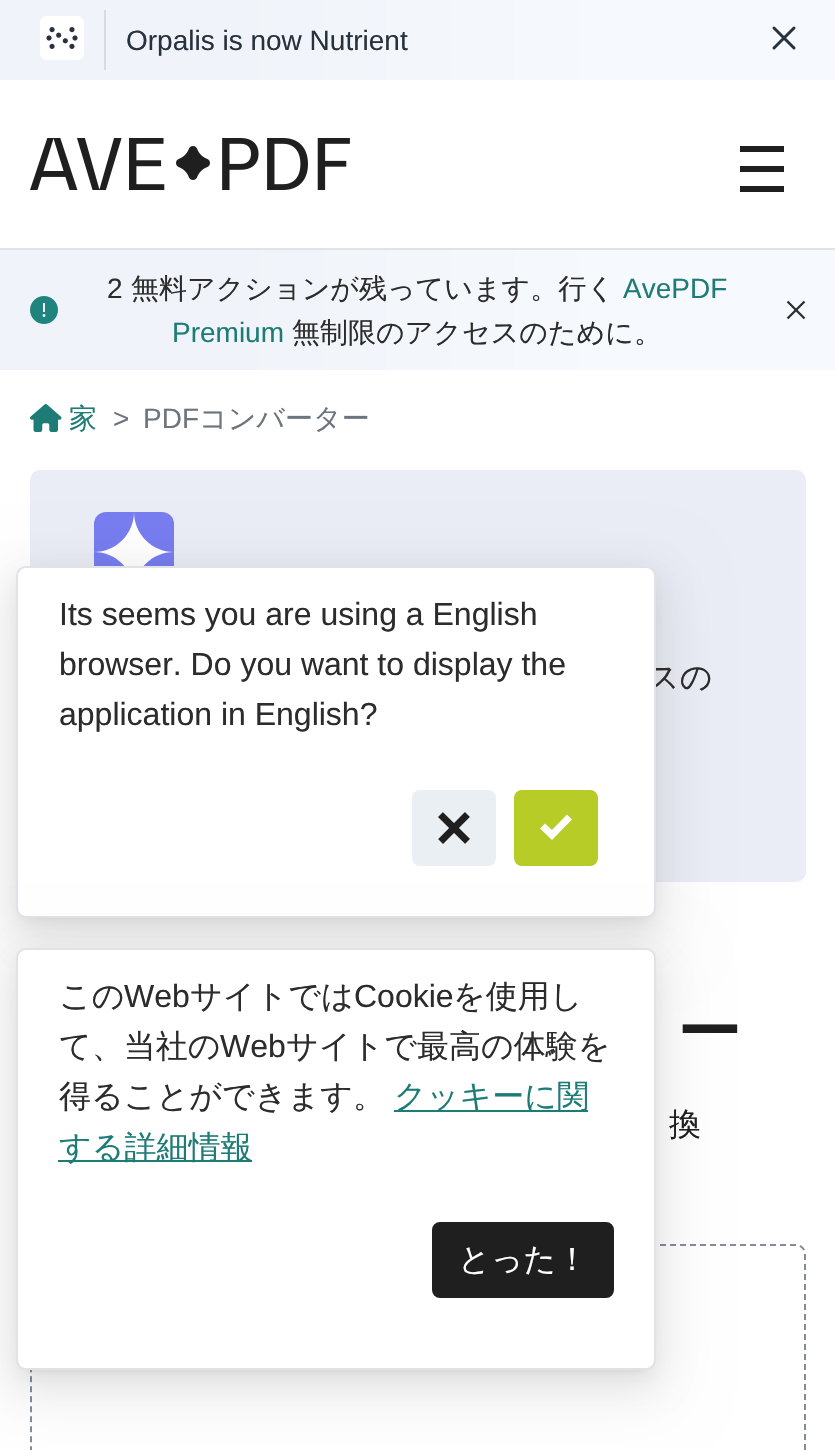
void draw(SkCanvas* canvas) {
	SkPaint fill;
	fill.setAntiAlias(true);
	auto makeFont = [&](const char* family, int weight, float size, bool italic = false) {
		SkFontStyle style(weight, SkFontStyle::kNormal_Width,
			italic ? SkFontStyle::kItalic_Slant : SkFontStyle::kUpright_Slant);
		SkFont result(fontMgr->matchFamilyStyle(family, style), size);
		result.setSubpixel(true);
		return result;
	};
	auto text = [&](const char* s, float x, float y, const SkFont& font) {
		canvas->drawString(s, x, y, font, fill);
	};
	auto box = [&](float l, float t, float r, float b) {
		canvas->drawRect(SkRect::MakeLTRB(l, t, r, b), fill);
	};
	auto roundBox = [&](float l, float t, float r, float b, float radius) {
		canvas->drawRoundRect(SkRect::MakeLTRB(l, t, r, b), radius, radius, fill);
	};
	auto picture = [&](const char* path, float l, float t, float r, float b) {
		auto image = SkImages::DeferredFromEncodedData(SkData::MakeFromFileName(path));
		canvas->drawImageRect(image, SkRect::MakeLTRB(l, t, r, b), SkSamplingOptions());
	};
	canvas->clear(0xFFFFFFFF);
	{
		const SkColor colors[] = {0xFFF0F3F9, 0xFFF6F9FD};
		const float stops[] = {0.27f, 0.73f};
		const SkPoint ends[] = {{0, 40}, {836, 40}};
		fill.setShader(SkGradientShader::MakeLinear(ends, colors, stops, 2, SkTileMode::kClamp));
		fill.setAlpha(255);
	}
	box(0, 0, 835, 80);
	picture("image0.png", 40, 16, 84, 60);
	fill.setShader(nullptr);
	fill.setColor(0xFFD7DCE4);
	box(104, 10, 106, 70);
	fill.setStyle(SkPaint::kStroke_Style);
	fill.setStrokeWidth(3);
	fill.setStrokeCap(SkPaint::kRound_Cap);
	fill.setColor(0xFF28313E);
	canvas->drawPath(SkPathBuilder().moveTo(774, 28).lineTo(794, 48).moveTo(794, 28).lineTo(774, 48).detach(), fill);
	fill.setStyle(SkPaint::kFill_Style);
	fill.setColor(0xFFE0E2E6);
	box(0, 248, 835, 250);
	picture("image1.png", 30, 138, 350, 190);
	fill.setColor(0xFF1F1F1F);
	box(740, 146, 784, 152);
	box(740, 166, 784, 172);
	box(740, 186, 784, 192);
	{
		const SkColor colors[] = {0xFFF0F3F9, 0xFFF6F9FD};
		const float stops[] = {0.27f, 0.73f};
		const SkPoint ends[] = {{0, 310}, {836, 310}};
		fill.setShader(SkGradientShader::MakeLinear(ends, colors, stops, 2, SkTileMode::kClamp));
		fill.setAlpha(255);
	}
	box(0, 250, 835, 370);
	picture("image2.png", 30, 296, 58, 324);
	picture("image3.png", 786, 300, 806, 320);
	picture("image4.png", 30, 404, 62, 432);
	fill.setShader(nullptr);
	fill.setColor(0xFFEAEDF5);
	roundBox(30, 470, 806, 882, 10);
	fill.setColor(0xFF777CF0);
	roundBox(94, 512, 174, 592, 12);
	fill.setColor(0xFFFFFFFF);
	canvas->drawPath(SkPathBuilder().moveTo(134, 512).cubicTo(134, 534, 116, 552, 94, 552).cubicTo(116, 552, 134, 570, 134, 592).cubicTo(134, 570, 152, 552, 174, 552).cubicTo(152, 552, 134, 534, 134, 512).close().detach(), fill);
	fill.setStyle(SkPaint::kStroke_Style);
	fill.setStrokeWidth(2);
	fill.setStrokeCap(SkPaint::kButt_Cap);
	fill.setColor(0xFF858B9D);
	fill.setPathEffect(SkDashPathEffect::Make({{6, 4}}, 0));
	canvas->drawPath(SkPathBuilder().moveTo(40, 1245).lineTo(796, 1245).cubicTo(801, 1245, 805, 1249, 805, 1254).lineTo(805, 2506).cubicTo(805, 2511, 801, 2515, 796, 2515).lineTo(40, 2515).cubicTo(35, 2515, 31, 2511, 31, 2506).lineTo(31, 1254).cubicTo(31, 1249, 35, 1245, 40, 1245).close().detach(), fill);
	fill.setPathEffect(nullptr);
	fill.setStyle(SkPaint::kFill_Style);
	fill.setColor(0x0D000000);
	fill.setMaskFilter(SkMaskFilter::MakeBlur(kNormal_SkBlurStyle, 28));
	canvas->drawRoundRect(SkRect::MakeLTRB(0, 568, 672, 952), 26, 26, fill);
	fill.setMaskFilter(nullptr);
	fill.setColor(0x14000000);
	fill.setMaskFilter(SkMaskFilter::MakeBlur(kNormal_SkBlurStyle, 16));
	canvas->drawRoundRect(SkRect::MakeLTRB(16, 578, 656, 930), 10, 10, fill);
	fill.setMaskFilter(nullptr);
	fill.setColor(0x1F000000);
	fill.setMaskFilter(SkMaskFilter::MakeBlur(kNormal_SkBlurStyle, 6));
	canvas->drawRoundRect(SkRect::MakeLTRB(24, 580, 648, 916), 2, 2, fill);
	fill.setMaskFilter(nullptr);
	fill.setMaskFilter(SkMaskFilter::MakeBlur(kNormal_SkBlurStyle, 6));
	canvas->drawRoundRect(SkRect::MakeLTRB(24, 962, 648, 1368), 2, 2, fill);
	fill.setMaskFilter(nullptr);
	auto font1 = makeFont("Liberation Sans", 400, 28);
	fill.setColor(0xFF28313E);
	text("Orpalis is now Nutrient", 126, 50, font1);
	fill.setColor(0xFF2C2C2C);
	text("2", 107, 298, font1);
	auto font2 = makeFont("WenQuanYi Zen Hei", 500, 28);
	text("無料アクションが残っています。行く", 131, 298, font2);
	fill.setColor(0xFF1D7C76);
	text("AvePDF", 623, 298, font1);
	text("Premium", 172, 342, font1);
	fill.setColor(0xFF2C2C2C);
	text("無制限のアクセスのために。", 292, 342, font2);
	fill.setColor(0xFF1D7C76);
	text("家", 69, 428, font2);
	fill.setColor(0xFF6C757D);
	text(">", 113, 428, font1);
	text("PDF", 143, 428, font1);
	text("コンバーター", 199, 428, font2);
	auto font3 = makeFont("WenQuanYi Zen Hei", 500, 32);
	fill.setColor(0xFF2C2C2C);
	text("スの", 647, 688, font3);
	auto font4 = makeFont("WenQuanYi Zen Hei", 700, 64);
	fill.setColor(0xFF1F1F1F);
	text("ー", 677, 1054, font4);
	text("換", 669, 1135, font3);
	fill.setColor(0xFFFFFFFF);
	roundBox(16, 566, 656, 918, 10);
	fill.setStyle(SkPaint::kStroke_Style);
	fill.setColor(0x33666E84);
	canvas->drawRoundRect(SkRect::MakeLTRB(17, 567, 655, 917), 9, 9, fill);
	auto font5 = makeFont("Liberation Sans", 400, 32);
	fill.setStyle(SkPaint::kFill_Style);
	fill.setColor(0xFF2C2C2C);
	text("Its seems you are using a English", 59, 625, font5);
	text("browser. Do you want to display the", 59, 675, font5);
	text("application in English?", 59, 725, font5);
	fill.setColor(0xFFEAEFF4);
	canvas->drawRoundRect(SkRect::MakeLTRB(413, 791, 495, 865), 7, 7, fill);
	fill.setStyle(SkPaint::kStroke_Style);
	canvas->drawRoundRect(SkRect::MakeLTRB(413, 791, 495, 865), 7, 7, fill);
	picture("image5.png", 438, 812, 470, 844);
	fill.setStyle(SkPaint::kFill_Style);
	fill.setColor(0xFFB7CC27);
	canvas->drawRoundRect(SkRect::MakeLTRB(515, 791, 597, 865), 7, 7, fill);
	fill.setStyle(SkPaint::kStroke_Style);
	canvas->drawRoundRect(SkRect::MakeLTRB(515, 791, 597, 865), 7, 7, fill);
	fill.setStyle(SkPaint::kFill_Style);
	fill.setColor(0xFFFFFFFF);
	canvas->drawPath(SkPathBuilder().moveTo(567, 814.5f).lineTo(552, 830).lineTo(545, 823.5f).lineTo(540, 828.5f).lineTo(552, 840).lineTo(572, 819.5f).close().detach(), fill);
	fill.setColor(0x0D000000);
	fill.setMaskFilter(SkMaskFilter::MakeBlur(kNormal_SkBlurStyle, 28));
	canvas->drawRoundRect(SkRect::MakeLTRB(0, 950, 672, 1404), 26, 26, fill);
	fill.setMaskFilter(nullptr);
	fill.setColor(0x14000000);
	fill.setMaskFilter(SkMaskFilter::MakeBlur(kNormal_SkBlurStyle, 16));
	canvas->drawRoundRect(SkRect::MakeLTRB(16, 960, 656, 1382), 10, 10, fill);
	fill.setMaskFilter(nullptr);
	fill.setColor(0xFFFFFFFF);
	roundBox(16, 948, 656, 1370, 10);
	fill.setStyle(SkPaint::kStroke_Style);
	fill.setColor(0x33666E84);
	canvas->drawRoundRect(SkRect::MakeLTRB(17, 949, 655, 1369), 9, 9, fill);
	fill.setStyle(SkPaint::kFill_Style);
	fill.setColor(0xFF2C2C2C);
	text("この", 59, 1007, font3);
	text("Web", 124, 1007, font5);
	text("サイトでは", 190, 1007, font3);
	text("Cookie", 354, 1007, font5);
	text("を使用し", 453, 1007, font3);
	text("て、当社の", 59, 1057, font3);
	text("Web", 220, 1057, font5);
	text("サイトで最高の体験を", 286, 1057, font3);
	text("得ることができます。", 59, 1107, font3);
	fill.setColor(0xFF1D7C76);
	box(394, 1110, 588, 1112);
	text("クッキーに関", 394, 1107, font3);
	box(58, 1160, 252, 1162);
	text("する詳細情報", 59, 1158, font3);
	fill.setColor(0xFF1F1F1F);
	canvas->drawRoundRect(SkRect::MakeLTRB(433, 1223, 613, 1297), 7, 7, fill);
	fill.setStyle(SkPaint::kStroke_Style);
	canvas->drawRoundRect(SkRect::MakeLTRB(433, 1223, 613, 1297), 7, 7, fill);
	fill.setStyle(SkPaint::kFill_Style);
	fill.setColor(0xFFFFFFFF);
	text("とった！", 458, 1270, font3);
}
